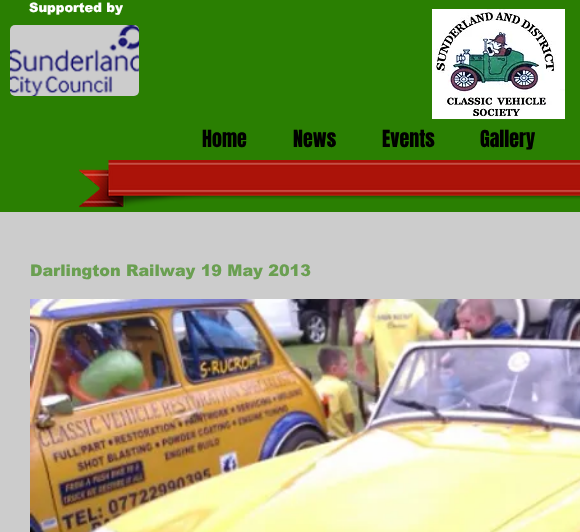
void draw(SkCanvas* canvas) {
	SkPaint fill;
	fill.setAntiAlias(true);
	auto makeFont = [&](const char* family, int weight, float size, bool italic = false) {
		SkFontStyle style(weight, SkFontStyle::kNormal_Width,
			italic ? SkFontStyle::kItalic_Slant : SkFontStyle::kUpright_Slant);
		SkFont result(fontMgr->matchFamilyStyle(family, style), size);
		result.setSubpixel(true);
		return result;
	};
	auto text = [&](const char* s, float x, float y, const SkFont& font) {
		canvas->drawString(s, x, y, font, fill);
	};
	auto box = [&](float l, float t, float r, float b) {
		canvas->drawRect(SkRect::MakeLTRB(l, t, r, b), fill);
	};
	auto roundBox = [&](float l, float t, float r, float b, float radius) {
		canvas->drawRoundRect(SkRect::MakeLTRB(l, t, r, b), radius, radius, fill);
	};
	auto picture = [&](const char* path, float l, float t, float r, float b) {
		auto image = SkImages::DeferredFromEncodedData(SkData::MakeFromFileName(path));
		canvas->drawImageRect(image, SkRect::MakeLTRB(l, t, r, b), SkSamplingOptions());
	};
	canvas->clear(0xFF2A7F02);
	picture("image0.png", 432, 9, 565, 119);
	fill.setColor(0xFFCCCCCC);
	roundBox(10, 25, 139, 96, 5);
	picture("image1.png", 10, 25, 139, 96);
	picture("image2.png", 79, 160, 580, 208);
	box(0, 212, 580, 532);
	picture("image3.png", 30, 299, 580, 532);
	auto font1 = makeFont("arial", 900, 13);
	fill.setColor(0xFFFFFFFF);
	text("Supported by", 29, 12, font1);
	auto font2 = makeFont("Anton", 400, 20);
	fill.setColor(0xFF000000);
	text("Home", 202, 147, font2);
	text("News", 293, 147, font2);
	text("Events", 382, 147, font2);
	text("Gallery", 480, 147, font2);
	auto font3 = makeFont("arial", 900, 16);
	fill.setColor(0xFF6A9F51);
	text("Darlington Railway 19 May 2013", 30, 276, font3);
}
